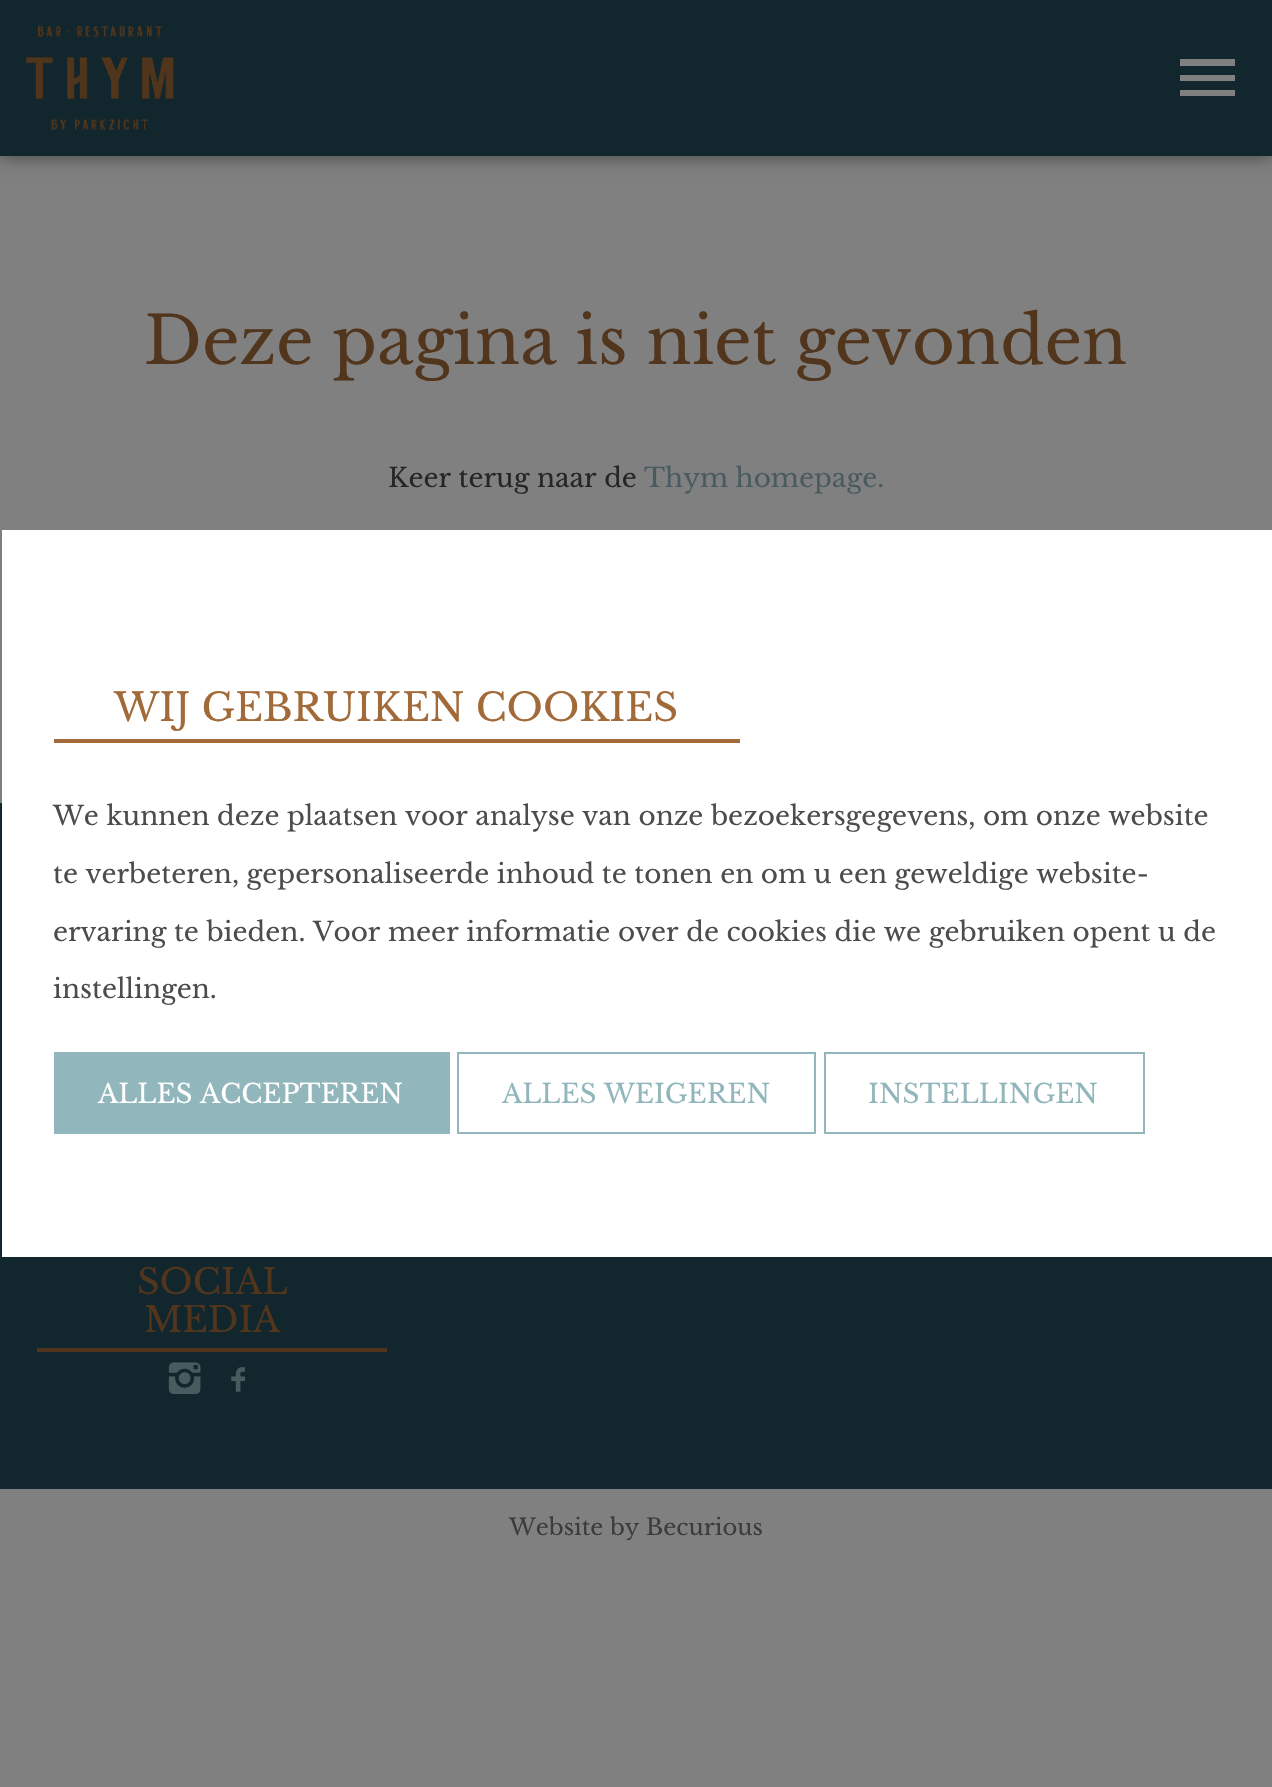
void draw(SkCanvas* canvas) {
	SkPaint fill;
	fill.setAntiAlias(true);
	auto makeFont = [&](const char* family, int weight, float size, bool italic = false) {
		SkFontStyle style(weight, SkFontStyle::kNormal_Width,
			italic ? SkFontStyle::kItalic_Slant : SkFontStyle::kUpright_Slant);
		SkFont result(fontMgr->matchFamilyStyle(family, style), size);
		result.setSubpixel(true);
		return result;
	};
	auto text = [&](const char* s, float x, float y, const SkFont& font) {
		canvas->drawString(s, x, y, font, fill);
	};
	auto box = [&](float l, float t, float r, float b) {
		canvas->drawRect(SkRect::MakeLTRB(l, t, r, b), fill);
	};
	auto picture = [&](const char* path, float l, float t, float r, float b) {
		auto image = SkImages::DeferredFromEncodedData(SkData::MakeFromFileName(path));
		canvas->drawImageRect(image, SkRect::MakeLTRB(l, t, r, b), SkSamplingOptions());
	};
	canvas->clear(0xFF808080);
	fill.setColor(0x80000000);
	fill.setMaskFilter(SkMaskFilter::MakeBlur(kNormal_SkBlurStyle, 9));
	canvas->drawRect(SkRect::MakeLTRB(0, 0, 1272, 156), fill);
	fill.setMaskFilter(nullptr);
	fill.setColor(0xFF12262D);
	box(0, 0, 1272, 156);
	picture("image0.png", 26, 25, 174, 130);
	fill.setColor(0xFF808080);
	canvas->drawPath(SkPathBuilder().moveTo(1180, 96).lineTo(1235, 96).lineTo(1235, 90).lineTo(1180, 90).close().moveTo(1180, 81).lineTo(1235, 81).lineTo(1235, 75).lineTo(1180, 75).close().moveTo(1180, 59).lineTo(1180, 66).lineTo(1235, 66).lineTo(1235, 59).close().detach(), fill);
	fill.setColor(0xFF12262D);
	box(0, 803, 1272, 1489);
	fill.setColor(0xFF51351C);
	box(37, 1348, 387, 1352);
	picture("image1.png", 168, 1362, 201, 1394);
	picture("image2.png", 231, 1367, 245, 1392);
	fill.setColor(0xFFFFFFFF);
	box(2, 530, 1272, 1257);
	fill.setColor(0xFFA16A38);
	box(54, 739, 740, 743);
	fill.setColor(0xFF91B6BB);
	box(54, 1052, 450, 1134);
	fill.setStyle(SkPaint::kStroke_Style);
	fill.setStrokeWidth(2);
	canvas->drawRect(SkRect::MakeLTRB(458, 1053, 815, 1133), fill);
	canvas->drawRect(SkRect::MakeLTRB(825, 1053, 1144, 1133), fill);
	auto font1 = makeFont("Libre Baskerville", 400, 65.6f);
	fill.setStyle(SkPaint::kFill_Style);
	fill.setColor(0xFF51351C);
	text("Deze pagina is niet gevonden", 144, 364, font1);
	auto font2 = makeFont("Libre Baskerville", 400, 26.25f);
	fill.setColor(0xFF262626);
	text("Keer terug naar de", 388, 487, font2);
	fill.setColor(0xFF495B5E);
	text("Thym homepage.", 644, 487, font2);
	auto font3 = makeFont("Libre Baskerville", 400, 35);
	fill.setColor(0xFF51351C);
	text("SOCIAL", 137, 1294, font3);
	text("MEDIA", 144, 1332, font3);
	canvas->save();
	canvas->clipRect(SkRect::MakeLTRB(0, 1516, 1272, 1540));
	auto font4 = makeFont("Libre Baskerville", 400, 22.75f);
	fill.setColor(0xFF3C3C3C);
	text("Website by Becurious", 509, 1535, font4);
	canvas->restore();
	auto font5 = makeFont("Libre Baskerville", 400, 38.5f);
	fill.setColor(0xFFA16A38);
	text("WIJ GEBRUIKEN COOKIES", 114, 721, font5);
	fill.setColor(0xFF4C4C4C);
	text("We kunnen deze plaatsen voor analyse van onze bezoekersgegevens, om onze website", 53, 825, font2);
	text("te verbeteren, gepersonaliseerde inhoud te tonen en om u een geweldige website-", 53, 883, font2);
	text("ervaring te bieden. Voor meer informatie over de cookies die we gebruiken opent u de", 53, 941, font2);
	text("instellingen.", 53, 998, font2);
	fill.setColor(0xFFFFFFFF);
	text("ALLES ACCEPTEREN", 98, 1103, font2);
	fill.setColor(0xFF91B6BB);
	text("ALLES WEIGEREN", 502, 1103, font2);
	text("INSTELLINGEN", 868, 1103, font2);
}
